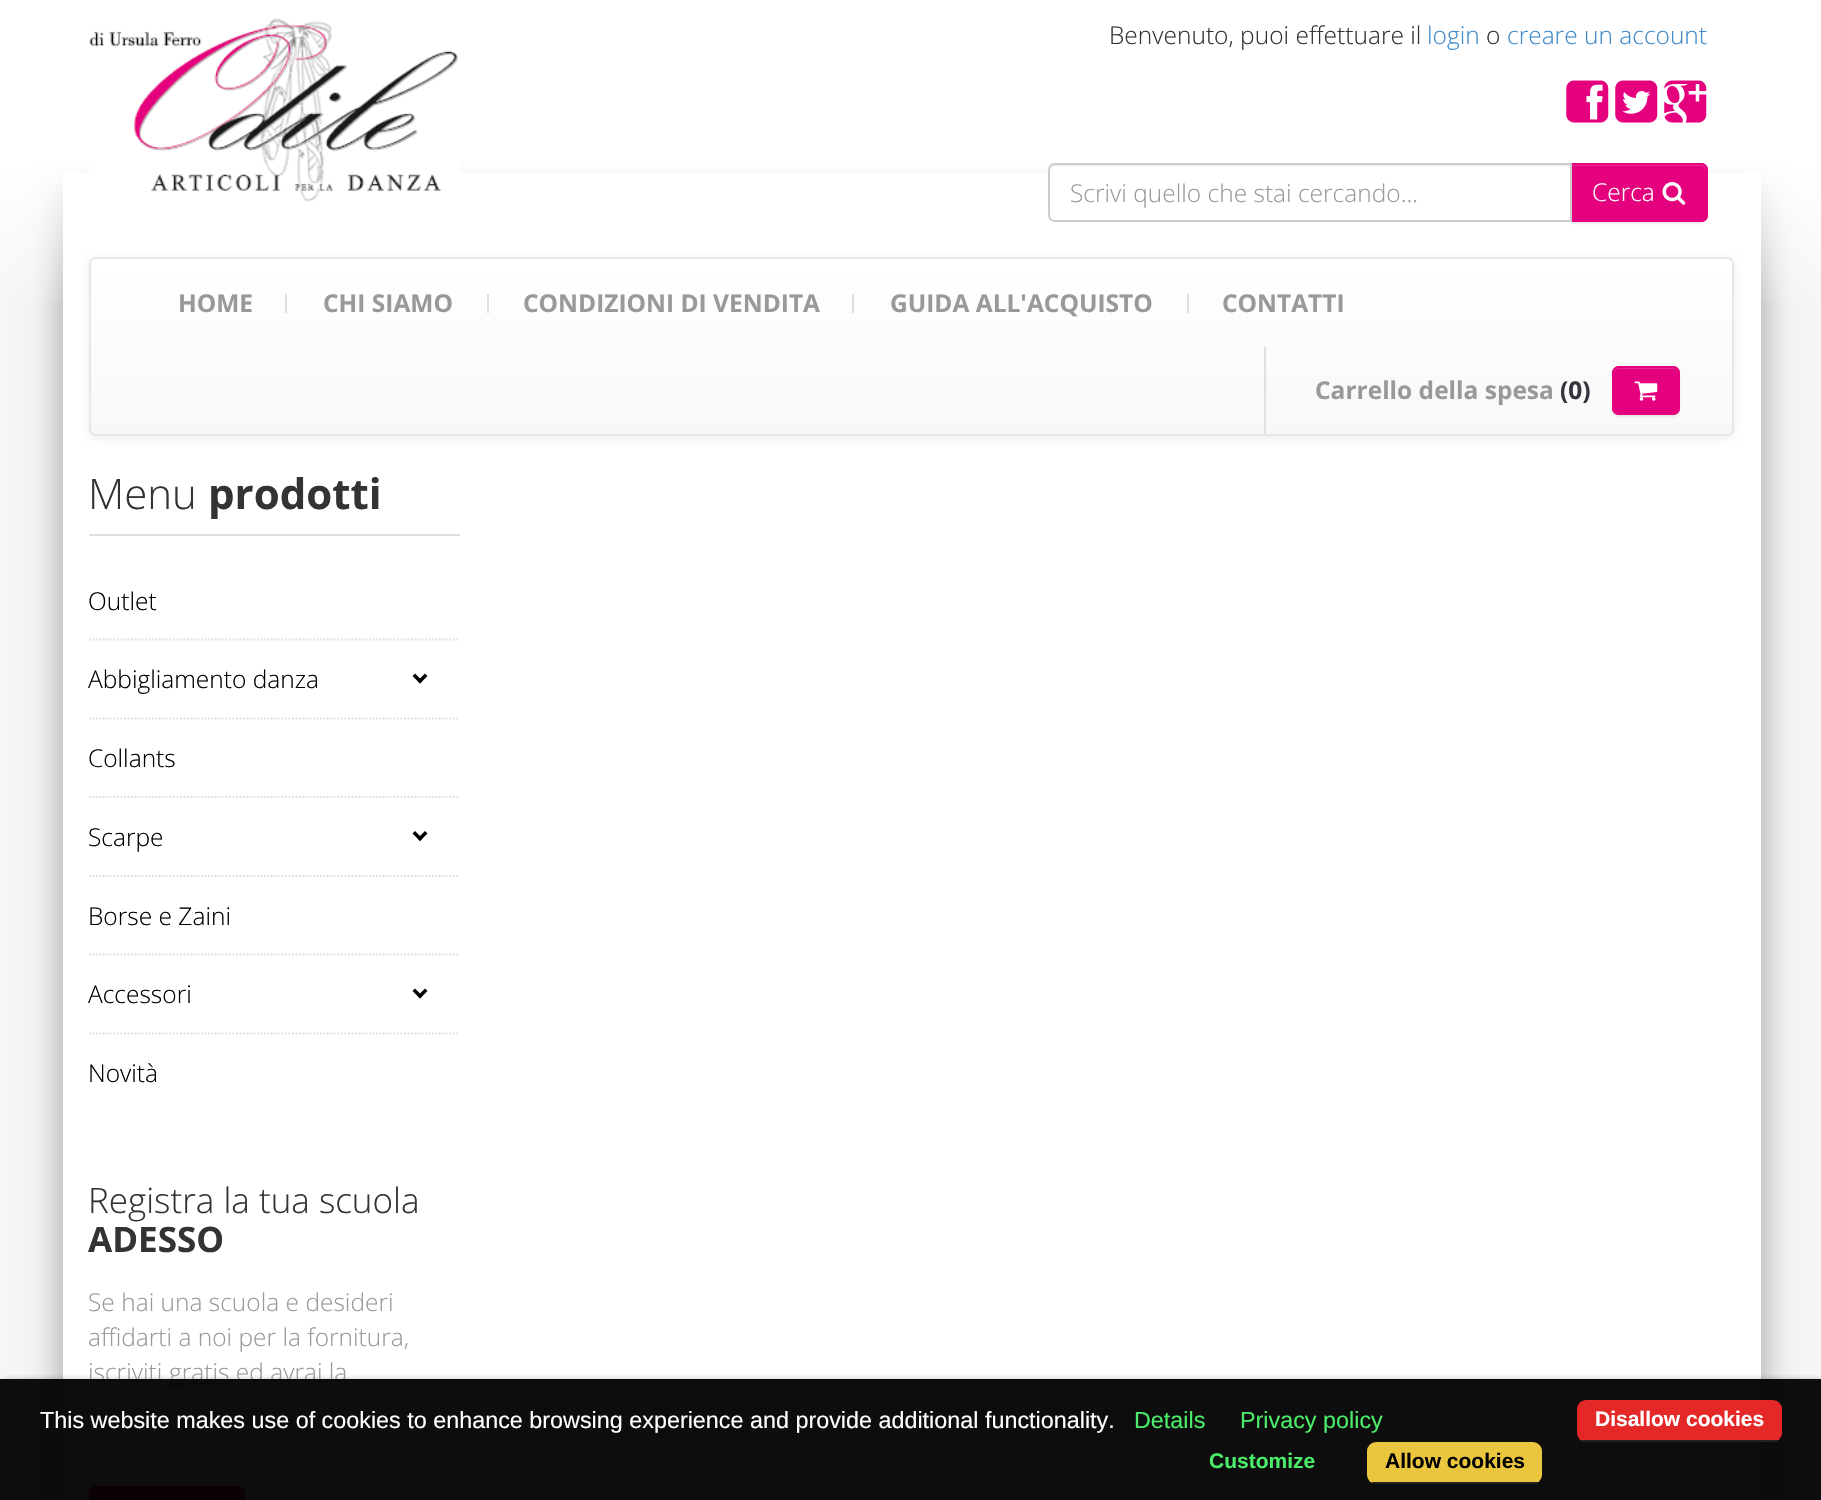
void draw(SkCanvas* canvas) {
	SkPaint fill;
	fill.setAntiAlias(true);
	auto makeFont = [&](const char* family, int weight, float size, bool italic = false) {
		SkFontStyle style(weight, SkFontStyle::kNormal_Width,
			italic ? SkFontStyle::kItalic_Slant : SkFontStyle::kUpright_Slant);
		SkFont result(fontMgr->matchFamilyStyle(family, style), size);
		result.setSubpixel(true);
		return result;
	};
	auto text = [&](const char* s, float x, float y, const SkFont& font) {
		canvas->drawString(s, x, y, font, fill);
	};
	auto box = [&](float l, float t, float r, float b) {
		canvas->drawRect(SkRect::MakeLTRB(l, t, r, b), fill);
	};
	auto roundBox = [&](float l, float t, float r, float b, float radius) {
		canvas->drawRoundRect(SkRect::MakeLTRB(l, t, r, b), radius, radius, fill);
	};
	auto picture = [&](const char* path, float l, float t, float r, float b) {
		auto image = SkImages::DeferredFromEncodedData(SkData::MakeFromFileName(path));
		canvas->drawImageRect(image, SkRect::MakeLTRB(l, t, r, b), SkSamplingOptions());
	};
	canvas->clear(0xFFF6F6F6);
	fill.setColor(0xFF9C9C9C);
	fill.setMaskFilter(SkMaskFilter::MakeBlur(kNormal_SkBlurStyle, 17.5f));
	canvas->drawRect(SkRect::MakeLTRB(63, 173, 1761, 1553), fill);
	fill.setMaskFilter(nullptr);
	fill.setColor(0xFFFFFFFF);
	box(63, 173, 1761, 1500);
	picture("image0.png", 0, 0, 1821, 302);
	picture("image1.png", 89, 18, 460, 202);
	picture("image2.png", 1566, 80, 1609, 123);
	picture("image3.png", 1615, 80, 1658, 123);
	picture("image4.png", 1664, 80, 1707, 123);
	fill.setColor(0x12000000);
	fill.setMaskFilter(SkMaskFilter::MakeBlur(kNormal_SkBlurStyle, 1));
	canvas->drawRoundRect(SkRect::MakeLTRB(1570, 165, 1708, 224), 7, 7, fill);
	fill.setMaskFilter(nullptr);
	fill.setColor(0xFFE5007D);
	canvas->drawPath(SkPathBuilder().moveTo(1570, 163).lineTo(1701, 163).cubicTo(1705, 163, 1708, 166, 1708, 170).lineTo(1708, 215).cubicTo(1708, 219, 1705, 222, 1701, 222).lineTo(1570, 222).close().detach(), fill);
	fill.setColor(0xFFE92691);
	canvas->drawPath(SkPathBuilder().moveTo(1572, 166).lineTo(1701, 166).cubicTo(1704, 166, 1706, 169, 1706, 172).lineTo(1706, 170).cubicTo(1706, 167, 1704, 165, 1701, 165).lineTo(1572, 165).close().detach(), fill);
	fill.setStyle(SkPaint::kStroke_Style);
	fill.setStrokeWidth(2);
	fill.setColor(0xFFE5007D);
	canvas->drawPath(SkPathBuilder().moveTo(1571, 164).lineTo(1701, 164).cubicTo(1704.5f, 164, 1707, 166.5f, 1707, 170).lineTo(1707, 215).cubicTo(1707, 218.5f, 1704.5f, 221, 1701, 221).lineTo(1571, 221).close().detach(), fill);
	fill.setStyle(SkPaint::kFill_Style);
	fill.setColor(0xFFFFFFFF);
	canvas->drawPath(SkPathBuilder().moveTo(1055, 163).lineTo(1572, 163).lineTo(1572, 222).lineTo(1055, 222).cubicTo(1051, 222, 1048, 219, 1048, 215).lineTo(1048, 170).cubicTo(1048, 166, 1051, 163, 1055, 163).close().detach(), fill);
	fill.setColor(0xFFECECEC);
	canvas->drawPath(SkPathBuilder().moveTo(1055, 166).lineTo(1570, 166).lineTo(1570, 165).lineTo(1055, 165).cubicTo(1052, 165, 1050, 167, 1050, 170).lineTo(1050, 172).cubicTo(1050, 169, 1052, 166, 1055, 166).close().detach(), fill);
	fill.setStyle(SkPaint::kStroke_Style);
	fill.setColor(0xFFCCCCCC);
	canvas->drawPath(SkPathBuilder().moveTo(1055, 164).lineTo(1571, 164).lineTo(1571, 221).lineTo(1055, 221).cubicTo(1051.5f, 221, 1049, 218.5f, 1049, 215).lineTo(1049, 170).cubicTo(1049, 166.5f, 1051.5f, 164, 1055, 164).close().detach(), fill);
	picture("image5.png", 1662, 182, 1686, 205);
	fill.setStyle(SkPaint::kFill_Style);
	fill.setColor(0x12000000);
	fill.setMaskFilter(SkMaskFilter::MakeBlur(kNormal_SkBlurStyle, 4.5f));
	canvas->drawRoundRect(SkRect::MakeLTRB(89, 259, 1734, 438), 7, 7, fill);
	fill.setMaskFilter(nullptr);
	canvas->save();
	canvas->clipPath(SkPathBuilder().moveTo(96, 257).lineTo(1727, 257).cubicTo(1731, 257, 1734, 260, 1734, 264).lineTo(1734, 429).cubicTo(1734, 433, 1731, 436, 1727, 436).lineTo(96, 436).cubicTo(92, 436, 89, 433, 89, 429).lineTo(89, 264).cubicTo(89, 260, 92, 257, 96, 257).close().detach(), true);
	{
		const SkColor colors[] = {0xFFFFFFFF, 0xFFF8F8F8};
		const float stops[] = {0, 1};
		const SkPoint ends[] = {{912, 259}, {912, 434}};
		fill.setShader(SkGradientShader::MakeLinear(ends, colors, stops, 2, SkTileMode::kClamp));
		fill.setAlpha(255);
	}
	box(89, 259, 1734, 434);
	canvas->restore();
	fill.setStyle(SkPaint::kStroke_Style);
	fill.setShader(nullptr);
	fill.setColor(0xFFE7E7E7);
	canvas->drawRoundRect(SkRect::MakeLTRB(90, 258, 1733, 435), 6, 6, fill);
	fill.setStyle(SkPaint::kFill_Style);
	fill.setColor(0xFFE0E0E0);
	box(285, 294, 287, 313);
	box(487, 294, 489, 313);
	box(852, 294, 854, 313);
	box(1187, 294, 1189, 313);
	box(1264, 347, 1266, 434);
	fill.setColor(0x12000000);
	fill.setMaskFilter(SkMaskFilter::MakeBlur(kNormal_SkBlurStyle, 1));
	canvas->drawRoundRect(SkRect::MakeLTRB(1612, 368, 1680, 417), 7, 7, fill);
	fill.setMaskFilter(nullptr);
	fill.setColor(0xFFE5007D);
	roundBox(1612, 366, 1680, 415, 7);
	fill.setColor(0xFFE92691);
	canvas->drawPath(SkPathBuilder().moveTo(1619, 369).lineTo(1673, 369).cubicTo(1676, 369, 1678, 372, 1678, 374).cubicTo(1678, 366, 1670, 368, 1664, 368).lineTo(1628, 368).cubicTo(1622, 368, 1614, 366, 1614, 374).cubicTo(1614, 372, 1616, 369, 1619, 369).close().detach(), fill);
	fill.setStyle(SkPaint::kStroke_Style);
	fill.setColor(0xFFE5007D);
	canvas->drawRoundRect(SkRect::MakeLTRB(1613, 367, 1679, 414), 6, 6, fill);
	picture("image6.png", 1634, 381, 1658, 401);
	fill.setStyle(SkPaint::kFill_Style);
	fill.setColor(0xFFE0E0E0);
	box(89, 534, 460, 536);
	fill.setStyle(SkPaint::kStroke_Style);
	fill.setStrokeWidth(1.8f);
	fill.setColor(0xFFDDDDDD);
	fill.setPathEffect(SkDashPathEffect::Make({{1.75f, 1.75f}}, 0));
	canvas->drawPath(SkPathBuilder().moveTo(89, 639.5f).lineTo(460, 639.5f).detach(), fill);
	fill.setPathEffect(nullptr);
	fill.setPathEffect(SkDashPathEffect::Make({{1.75f, 1.75f}}, 0));
	canvas->drawPath(SkPathBuilder().moveTo(89, 718.5f).lineTo(460, 718.5f).detach(), fill);
	fill.setPathEffect(nullptr);
	fill.setStyle(SkPaint::kFill_Style);
	fill.setColor(0xFF000000);
	canvas->drawPath(SkPathBuilder().moveTo(420, 683.5f).lineTo(412.5f, 676).lineTo(415, 673.5f).lineTo(422.5f, 681).close().detach(), fill);
	canvas->drawPath(SkPathBuilder().moveTo(420, 683.5f).lineTo(417.5f, 681).lineTo(425, 673.5f).lineTo(427.5f, 676).close().detach(), fill);
	fill.setStyle(SkPaint::kStroke_Style);
	fill.setColor(0xFFDDDDDD);
	fill.setPathEffect(SkDashPathEffect::Make({{1.75f, 1.75f}}, 0));
	canvas->drawPath(SkPathBuilder().moveTo(89, 797).lineTo(460, 797).detach(), fill);
	fill.setPathEffect(nullptr);
	fill.setPathEffect(SkDashPathEffect::Make({{1.75f, 1.75f}}, 0));
	canvas->drawPath(SkPathBuilder().moveTo(89, 876).lineTo(460, 876).detach(), fill);
	fill.setPathEffect(nullptr);
	fill.setStyle(SkPaint::kFill_Style);
	fill.setColor(0xFF000000);
	canvas->drawPath(SkPathBuilder().moveTo(420, 841).lineTo(412.5f, 833.5f).lineTo(415, 831).lineTo(422.5f, 838.5f).close().detach(), fill);
	canvas->drawPath(SkPathBuilder().moveTo(420, 841).lineTo(417.5f, 838.5f).lineTo(425, 831).lineTo(427.5f, 833.5f).close().detach(), fill);
	fill.setStyle(SkPaint::kStroke_Style);
	fill.setColor(0xFFDDDDDD);
	fill.setPathEffect(SkDashPathEffect::Make({{1.75f, 1.75f}}, 0));
	canvas->drawPath(SkPathBuilder().moveTo(89, 954.5f).lineTo(460, 954.5f).detach(), fill);
	fill.setPathEffect(nullptr);
	fill.setPathEffect(SkDashPathEffect::Make({{1.75f, 1.75f}}, 0));
	canvas->drawPath(SkPathBuilder().moveTo(89, 1033.5f).lineTo(460, 1033.5f).detach(), fill);
	fill.setPathEffect(nullptr);
	fill.setStyle(SkPaint::kFill_Style);
	fill.setColor(0xFF000000);
	canvas->drawPath(SkPathBuilder().moveTo(420, 998.5f).lineTo(412.5f, 991).lineTo(415, 988.5f).lineTo(422.5f, 996).close().detach(), fill);
	canvas->drawPath(SkPathBuilder().moveTo(420, 998.5f).lineTo(417.5f, 996).lineTo(425, 988.5f).lineTo(427.5f, 991).close().detach(), fill);
	fill.setColor(0xFF999999);
	box(170, 1383, 229, 1385);
	fill.setColor(0x12000000);
	fill.setMaskFilter(SkMaskFilter::MakeBlur(kNormal_SkBlurStyle, 1));
	canvas->drawRoundRect(SkRect::MakeLTRB(89, 1488, 245, 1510), 7, 7, fill);
	fill.setMaskFilter(nullptr);
	fill.setColor(0xFFE5007D);
	roundBox(89, 1486, 245, 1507, 7);
	fill.setColor(0xFFE92691);
	canvas->drawPath(SkPathBuilder().moveTo(96, 1489).lineTo(238, 1489).cubicTo(241, 1489, 243, 1492, 243, 1494).lineTo(243, 1493).cubicTo(243, 1490, 241, 1488, 238, 1488).lineTo(96, 1488).cubicTo(93, 1488, 91, 1490, 91, 1493).lineTo(91, 1494).cubicTo(91, 1492, 93, 1489, 96, 1489).close().detach(), fill);
	fill.setStyle(SkPaint::kStroke_Style);
	fill.setStrokeWidth(2);
	fill.setColor(0xFFE5007D);
	canvas->drawRoundRect(SkRect::MakeLTRB(90, 1487, 244, 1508), 6, 6, fill);
	canvas->save();
	canvas->clipRect(SkRect::MakeLTRB(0, 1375, 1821, 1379));
	fill.setStyle(SkPaint::kFill_Style);
	fill.setColor(0x99000000);
	fill.setMaskFilter(SkMaskFilter::MakeBlur(kNormal_SkBlurStyle, 4.5f));
	canvas->drawRect(SkRect::MakeLTRB(4, 1383, 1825, 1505), fill);
	fill.setMaskFilter(nullptr);
	canvas->restore();
	auto font1 = makeFont("Open Sans", 300, 24.5f);
	fill.setColor(0xFF333333);
	text("Benvenuto, puoi effettuare il", 1109, 44, font1);
	fill.setColor(0xFF428BCA);
	text("login", 1427, 44, font1);
	fill.setColor(0xFF333333);
	text("o", 1486, 44, font1);
	fill.setColor(0xFF428BCA);
	text("creare un account", 1507, 44, font1);
	fill.setColor(0xFF999999);
	text("Scrivi quello che stai cercando...", 1070, 202, font1);
	fill.setColor(0xFFFFFFFF);
	text("Cerca", 1592, 201, font1);
	auto font2 = makeFont("Open Sans", 700, 24.5f);
	fill.setColor(0xFF999999);
	text("HOME", 178, 312, font2);
	text("CHI SIAMO", 323, 312, font2);
	text("CONDIZIONI DI VENDITA", 523, 312, font2);
	text("GUIDA ALL'ACQUISTO", 890, 312, font2);
	text("CONTATTI", 1222, 312, font2);
	text("Carrello della spesa", 1315, 399, font2);
	fill.setColor(0xFF34353E);
	text("(0)", 1560, 399, font2);
	auto font3 = makeFont("Open Sans", 300, 42);
	fill.setColor(0xFF333333);
	text("Menu", 88, 509, font3);
	auto font4 = makeFont("Open Sans", 700, 42);
	text("prodotti", 208, 509, font4);
	fill.setColor(0xFF000000);
	text("Outlet", 88, 610, font1);
	text("Abbigliamento danza", 88, 688, font1);
	text("Collants", 88, 767, font1);
	text("Scarpe", 88, 846, font1);
	text("Borse e Zaini", 88, 925, font1);
	text("Accessori", 88, 1003, font1);
	text("Novità", 88, 1082, font1);
	auto font5 = makeFont("Open Sans", 300, 35);
	fill.setColor(0xFF333333);
	text("Registra la tua scuola", 88, 1213, font5);
	auto font6 = makeFont("Open Sans", 700, 35);
	text("ADESSO", 88, 1252, font6);
	fill.setColor(0xFF999999);
	text("Se hai una scuola e desideri", 88, 1311, font1);
	text("affidarti a noi per la fornitura,", 88, 1346, font1);
	text("iscriviti", 88, 1381, font1);
	text("gratis ed avrai la", 169, 1381, font1);
	fill.setColor(0xF2000000);
	box(0, 1379, 1821, 1500);
	auto font7 = makeFont("Liberation Sans", 400, 23.35f);
	fill.setColor(0xFFFFFFFF);
	text("This website makes use of cookies to enhance browsing experience and provide additional functionality.", 40, 1428, font7);
	fill.setColor(0xFF4BEC69);
	text("Details", 1134, 1428, font7);
	text("Privacy policy", 1240, 1428, font7);
	fill.setColor(0xFFE42828);
	roundBox(1577, 1400, 1782, 1442, 9);
	fill.setColor(0xFF222222);
	box(1582, 1440, 1778, 1442);
	auto font8 = makeFont("Liberation Sans", 700, 21);
	fill.setColor(0xFFFFFFFF);
	text("Disallow cookies", 1595, 1426, font8);
	fill.setColor(0xFF4BEC69);
	text("Customize", 1209, 1468, font8);
	fill.setColor(0xFFEAC53E);
	roundBox(1367, 1442, 1542, 1484, 9);
	fill.setColor(0xFF222222);
	box(1372, 1482, 1538, 1484);
	fill.setColor(0xFF000000);
	text("Allow cookies", 1385, 1468, font8);
}
